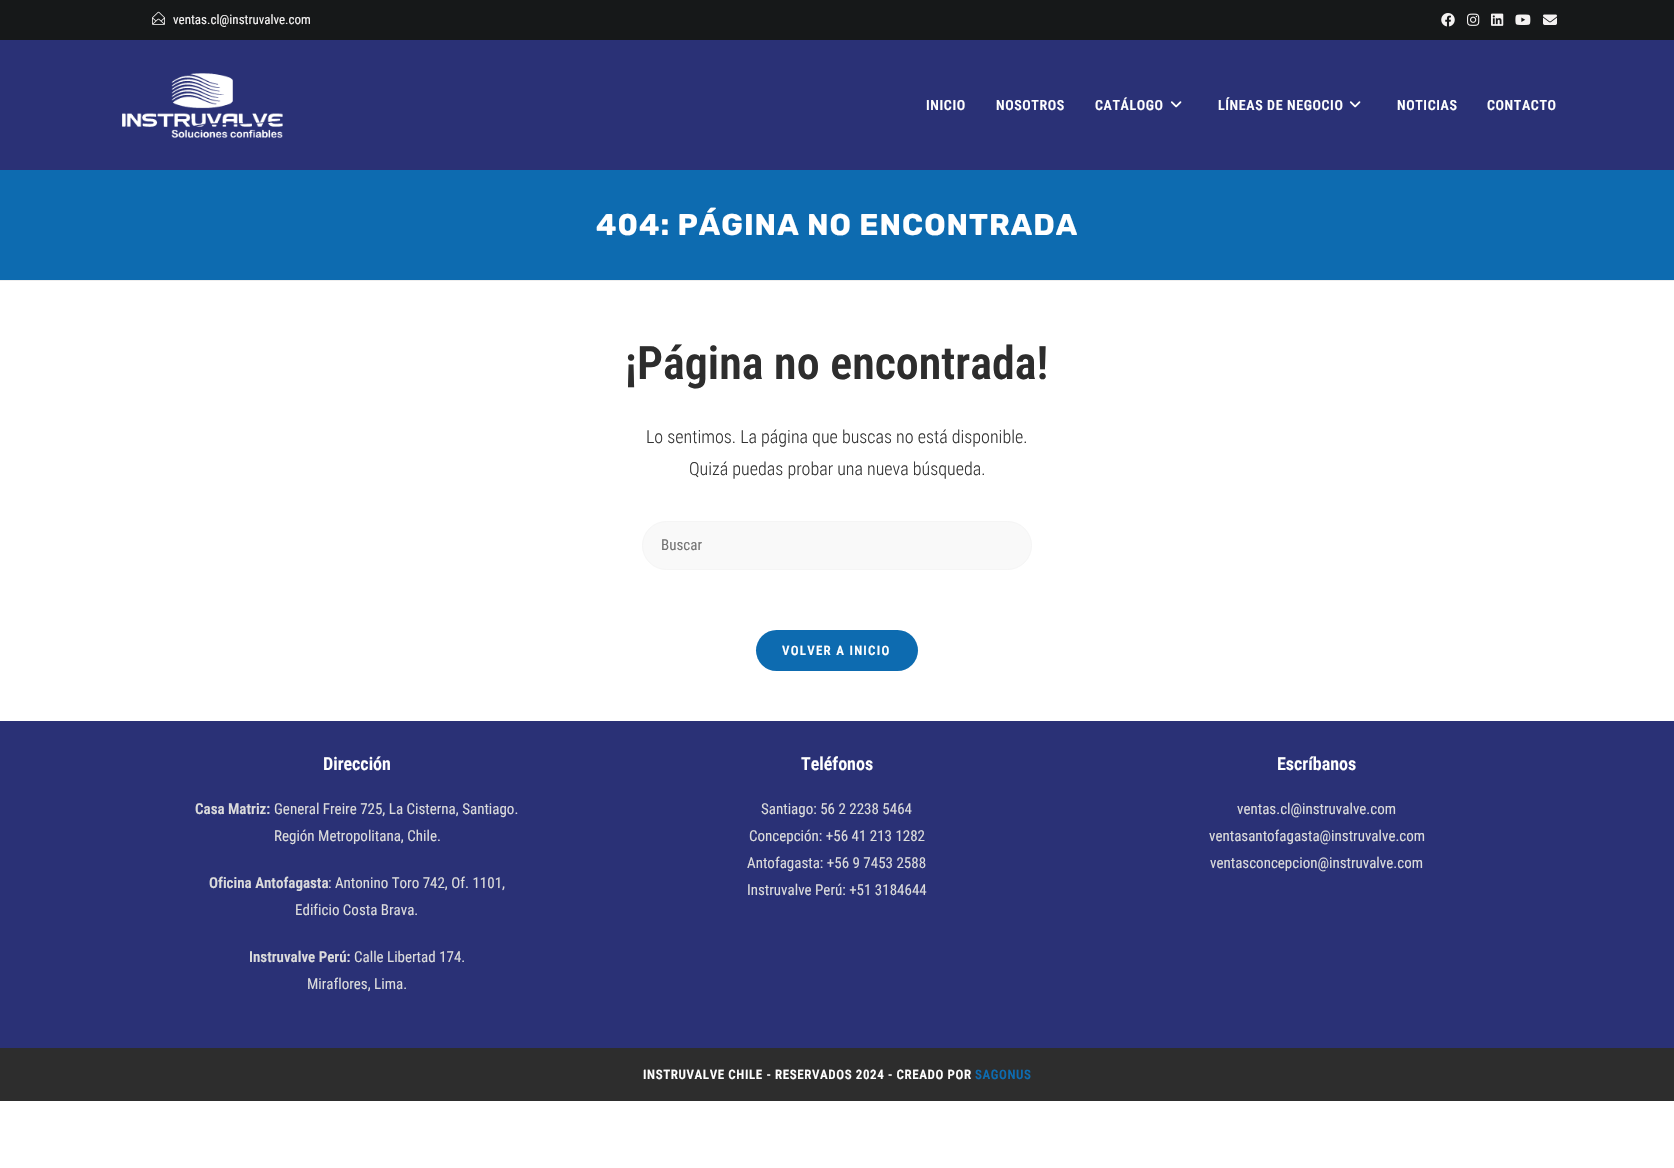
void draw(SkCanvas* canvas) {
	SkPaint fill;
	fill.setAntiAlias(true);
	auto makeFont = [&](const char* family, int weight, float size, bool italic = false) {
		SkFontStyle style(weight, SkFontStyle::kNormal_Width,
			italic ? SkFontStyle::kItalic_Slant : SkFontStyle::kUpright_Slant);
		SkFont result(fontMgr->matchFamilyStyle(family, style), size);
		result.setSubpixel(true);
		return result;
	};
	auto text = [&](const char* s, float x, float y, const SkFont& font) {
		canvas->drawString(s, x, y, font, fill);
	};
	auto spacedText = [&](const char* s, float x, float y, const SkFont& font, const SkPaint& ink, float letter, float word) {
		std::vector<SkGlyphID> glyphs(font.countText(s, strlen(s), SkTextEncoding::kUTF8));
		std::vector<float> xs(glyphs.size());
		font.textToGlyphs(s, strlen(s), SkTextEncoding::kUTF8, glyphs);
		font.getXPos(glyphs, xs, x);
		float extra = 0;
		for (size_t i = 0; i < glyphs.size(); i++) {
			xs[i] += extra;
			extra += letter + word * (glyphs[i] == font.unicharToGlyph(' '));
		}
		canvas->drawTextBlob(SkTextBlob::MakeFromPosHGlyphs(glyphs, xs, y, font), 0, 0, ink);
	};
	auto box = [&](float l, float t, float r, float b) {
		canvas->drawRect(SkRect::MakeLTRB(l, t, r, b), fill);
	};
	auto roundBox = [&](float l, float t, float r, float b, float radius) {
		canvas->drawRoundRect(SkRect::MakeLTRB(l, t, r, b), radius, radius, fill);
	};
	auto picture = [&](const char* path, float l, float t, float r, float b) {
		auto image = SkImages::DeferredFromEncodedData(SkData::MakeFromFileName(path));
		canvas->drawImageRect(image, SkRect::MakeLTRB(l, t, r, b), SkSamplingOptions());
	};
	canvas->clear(0xFFFFFFFF);
	fill.setColor(0xFF161819);
	box(0, 0, 1674, 40);
	picture("image0.png", 152, 11, 165, 25);
	picture("image1.png", 1441, 13, 1455, 27);
	picture("image2.png", 1467, 13, 1480, 26);
	picture("image3.png", 1491, 13, 1504, 26);
	picture("image4.png", 1515, 14, 1531, 25);
	picture("image5.png", 1543, 14, 1557, 25);
	fill.setColor(0xFF2A3176);
	box(0, 40, 1674, 170);
	picture("image6.png", 122, 73, 283, 138);
	picture("image7.png", 1170, 101, 1182, 108);
	picture("image7.png", 1349, 101, 1361, 108);
	fill.setColor(0xFF0D6BB0);
	box(0, 170, 1674, 280);
	fill.setColor(0xFFEEEEEE);
	box(0, 280, 1674, 281);
	fill.setColor(0xFFF9F9F9);
	canvas->drawRoundRect(SkRect::MakeLTRB(642.5f, 521.5f, 1031.5f, 569.5f), 24, 24, fill);
	fill.setStyle(SkPaint::kStroke_Style);
	fill.setStrokeWidth(1);
	fill.setColor(0xFFF5F5F5);
	canvas->drawRoundRect(SkRect::MakeLTRB(642.5f, 521.5f, 1031.5f, 569.5f), 24, 24, fill);
	fill.setStyle(SkPaint::kFill_Style);
	fill.setColor(0xFF0D6BB0);
	roundBox(756, 630, 918, 671, 20.5f);
	fill.setColor(0xFF2A3176);
	box(0, 721, 1674, 1048);
	fill.setColor(0xFF2D2D2D);
	box(0, 1048, 1674, 1101);
	auto font1 = makeFont("Roboto Condensed", 400, 13);
	fill.setColor(0xFFF4F2F2);
	text("ventas.cl@instruvalve.com", 173, 24, font1);
	auto font2 = makeFont("Roboto Condensed", 600, 14);
	fill.setColor(0xFFFFFFFF);
	spacedText("INICIO", 926, 110, font2, fill, 0.6f, 0);
	spacedText("NOSOTROS", 996, 110, font2, fill, 0.6f, 0);
	spacedText("CATÁLOGO", 1095, 110, font2, fill, 0.6f, 0);
	spacedText("LÍNEAS DE NEGOCIO", 1218, 110, font2, fill, 0.6f, 0);
	spacedText("NOTICIAS", 1397, 110, font2, fill, 0.6f, 0);
	spacedText("CONTACTO", 1487, 110, font2, fill, 0.6f, 0);
	auto font3 = makeFont("Rubik", 700, 30);
	spacedText("404: PÁGINA NO ENCONTRADA", 596, 235, font3, fill, 1, 0);
	auto font4 = makeFont("Roboto Condensed", 600, 46);
	fill.setColor(0xFF2D2D2D);
	text("¡Página no encontrada!", 625, 379, font4);
	auto font5 = makeFont("Roboto Condensed", 300, 18);
	fill.setColor(0xFF333333);
	text("Lo sentimos. La página que buscas no está disponible.", 646, 443, font5);
	text("Quizá puedas probar una nueva búsqueda.", 689, 475, font5);
	auto font6 = makeFont("Roboto Condensed", 400, 15);
	fill.setColor(0xFF757575);
	text("Buscar", 661, 550, font6);
	auto font7 = makeFont("Roboto Condensed", 600, 13);
	fill.setColor(0xFFFFFFFF);
	spacedText("VOLVER A INICIO", 782, 655, font7, fill, 1.25f, 0);
	auto font8 = makeFont("Roboto Condensed", 600, 18);
	text("Dirección", 323, 770, font8);
	auto font9 = makeFont("Roboto Condensed", 600, 15);
	fill.setColor(0xFFDBDBDB);
	text("Casa Matriz:", 195, 814, font9);
	text("General Freire 725, La Cisterna, Santiago.", 274, 814, font6);
	text("Región Metropolitana, Chile.", 274, 841, font6);
	text("Oficina Antofagasta", 209, 888, font9);
	text(": Antonino Toro 742, Of. 1101,", 328, 888, font6);
	text("Edificio Costa Brava.", 295, 915, font6);
	text("Instruvalve Perú:", 249, 962, font9);
	text("Calle Libertad 174.", 354, 962, font6);
	text("Miraflores, Lima.", 307, 989, font6);
	fill.setColor(0xFFFFFFFF);
	text("Teléfonos", 801, 770, font8);
	fill.setColor(0xFFDBDBDB);
	text("Santiago: 56 2 2238 5464", 761, 814, font6);
	text("Concepción: +56 41 213 1282", 749, 841, font6);
	text("Antofagasta: +56 9 7453 2588", 747, 868, font6);
	text("Instruvalve Perú: +51 3184644", 747, 895, font6);
	fill.setColor(0xFFFFFFFF);
	text("Escríbanos", 1277, 770, font8);
	fill.setColor(0xFFDBDBDB);
	text("ventas.cl@instruvalve.com", 1237, 814, font6);
	text("ventasantofagasta@instruvalve.com", 1209, 841, font6);
	text("ventasconcepcion@instruvalve.com", 1210, 868, font6);
	fill.setColor(0xFFFFFFFF);
	spacedText("INSTRUVALVE CHILE - RESERVADOS 2024 - CREADO POR", 643, 1079, font7, fill, 0.6f, 0);
	fill.setColor(0xFF0D6BB0);
	spacedText("SAGONUS", 975, 1079, font7, fill, 0.6f, 0);
}
